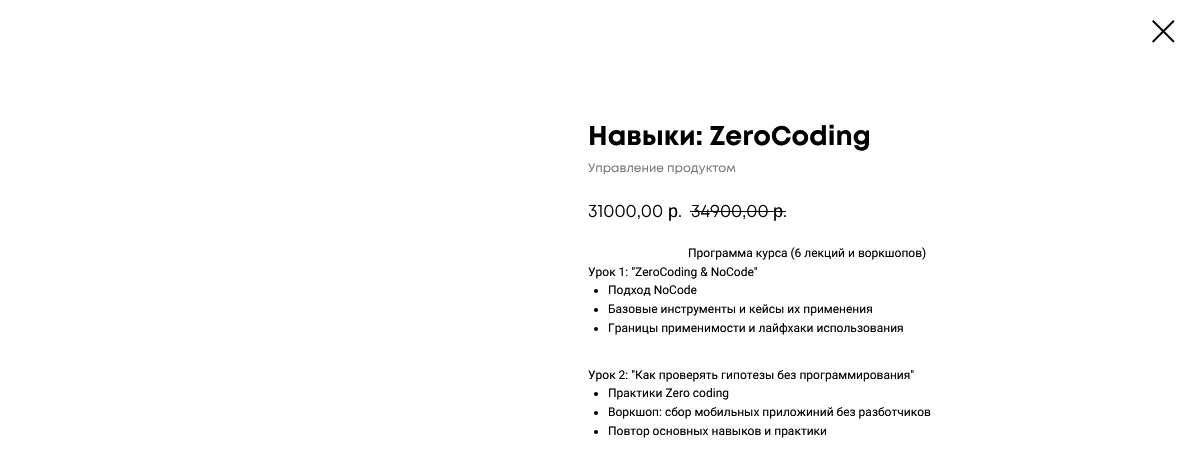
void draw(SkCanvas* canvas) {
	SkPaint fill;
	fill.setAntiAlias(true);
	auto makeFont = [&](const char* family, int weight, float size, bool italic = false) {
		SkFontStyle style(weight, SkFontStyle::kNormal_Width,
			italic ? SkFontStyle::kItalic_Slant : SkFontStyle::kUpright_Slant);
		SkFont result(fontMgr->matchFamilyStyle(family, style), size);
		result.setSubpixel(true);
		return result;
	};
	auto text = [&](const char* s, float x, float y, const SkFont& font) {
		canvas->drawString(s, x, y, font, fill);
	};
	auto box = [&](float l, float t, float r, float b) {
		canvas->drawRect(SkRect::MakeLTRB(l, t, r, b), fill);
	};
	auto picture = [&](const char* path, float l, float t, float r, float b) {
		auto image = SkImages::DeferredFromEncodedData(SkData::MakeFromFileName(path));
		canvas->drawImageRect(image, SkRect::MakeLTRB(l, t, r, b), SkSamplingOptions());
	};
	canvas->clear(0xFFFFFFFF);
	picture("image0.png", 1152, 20, 1175, 43);
	fill.setColor(0xFF000000);
	box(690, 211, 786, 212);
	canvas->drawCircle(596, 291, 2, fill);
	canvas->drawCircle(596, 310, 2, fill);
	canvas->drawCircle(596, 329, 2, fill);
	canvas->drawCircle(596, 394, 2, fill);
	canvas->drawCircle(596, 413, 2, fill);
	canvas->drawCircle(596, 432, 2, fill);
	auto font1 = makeFont("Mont", 700, 27);
	text("Навыки: ZeroCoding", 588, 145, font1);
	auto font2 = makeFont("Mont", 400, 12);
	fill.setColor(0xFF777777);
	text("Управление продуктом", 588, 172, font2);
	auto font3 = makeFont("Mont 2", 400, 18);
	fill.setColor(0xFF000000);
	text("31000,00", 588, 217, font3);
	auto font4 = makeFont("Liberation Sans", 400, 18);
	text("р", 668, 217, font4);
	text(".", 678, 217, font3);
	text("34900,00", 691, 217, font3);
	text("р", 773, 217, font4);
	text(".", 783, 217, font3);
	auto font5 = makeFont("Roboto", 400, 12);
	text("Программа курса (6 лекций и воркшопов)", 688, 257, font5);
	text("Урок 1: \"ZeroCoding & NoCode\"", 588, 276, font5);
	text("Подход NoCode", 608, 294, font5);
	text("Базовые инструменты и кейсы их применения", 608, 313, font5);
	text("Границы применимости и лайфхаки использования", 608, 332, font5);
	text("Урок 2: \"Как проверять гипотезы без программирования\"", 588, 379, font5);
	text("Практики Zero coding", 608, 397, font5);
	text("Воркшоп: сбор мобильных приложиний без разботчиков", 608, 416, font5);
	text("Повтор основных навыков и практики", 608, 435, font5);
}
